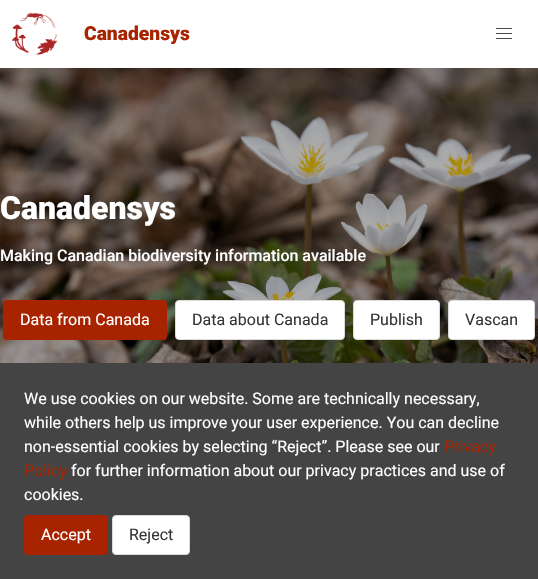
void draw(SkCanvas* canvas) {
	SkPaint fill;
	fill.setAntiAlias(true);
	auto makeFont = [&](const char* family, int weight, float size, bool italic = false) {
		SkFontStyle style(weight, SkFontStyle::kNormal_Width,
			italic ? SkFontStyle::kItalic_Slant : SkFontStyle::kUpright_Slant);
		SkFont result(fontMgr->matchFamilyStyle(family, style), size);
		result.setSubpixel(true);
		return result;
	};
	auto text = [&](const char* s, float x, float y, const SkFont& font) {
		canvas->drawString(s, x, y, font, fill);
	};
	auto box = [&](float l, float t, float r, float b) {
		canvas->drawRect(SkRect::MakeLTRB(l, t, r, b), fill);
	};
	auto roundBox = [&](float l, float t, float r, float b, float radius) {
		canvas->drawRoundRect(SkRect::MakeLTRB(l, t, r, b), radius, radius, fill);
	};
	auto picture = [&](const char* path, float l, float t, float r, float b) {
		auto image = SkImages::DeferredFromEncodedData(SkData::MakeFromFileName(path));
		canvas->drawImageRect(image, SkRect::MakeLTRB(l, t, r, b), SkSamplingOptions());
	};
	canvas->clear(0xFFFFFFFF);
	picture("image0.png", 12, 12, 58, 55);
	fill.setColor(0xFF4A4A4A);
	box(496, 28, 512, 29);
	box(496, 33, 512, 34);
	box(496, 38, 512, 39);
	picture("image1.png", 0, 68, 538, 363);
	fill.setColor(0xFFA82400);
	roundBox(3, 300, 167, 340, 4);
	fill.setColor(0xFFFFFFFF);
	canvas->drawRoundRect(SkRect::MakeLTRB(175.5f, 300.5f, 344.5f, 339.5f), 3.5f, 3.5f, fill);
	fill.setStyle(SkPaint::kStroke_Style);
	fill.setStrokeWidth(1);
	fill.setColor(0xFFDBDBDB);
	canvas->drawRoundRect(SkRect::MakeLTRB(175.5f, 300.5f, 344.5f, 339.5f), 3.5f, 3.5f, fill);
	fill.setStyle(SkPaint::kFill_Style);
	fill.setColor(0xFFFFFFFF);
	canvas->drawRoundRect(SkRect::MakeLTRB(353.5f, 300.5f, 439.5f, 339.5f), 3.5f, 3.5f, fill);
	fill.setStyle(SkPaint::kStroke_Style);
	fill.setColor(0xFFDBDBDB);
	canvas->drawRoundRect(SkRect::MakeLTRB(353.5f, 300.5f, 439.5f, 339.5f), 3.5f, 3.5f, fill);
	fill.setStyle(SkPaint::kFill_Style);
	fill.setColor(0xFFFFFFFF);
	canvas->drawRoundRect(SkRect::MakeLTRB(448.5f, 300.5f, 534.5f, 339.5f), 3.5f, 3.5f, fill);
	fill.setStyle(SkPaint::kStroke_Style);
	fill.setColor(0xFFDBDBDB);
	canvas->drawRoundRect(SkRect::MakeLTRB(448.5f, 300.5f, 534.5f, 339.5f), 3.5f, 3.5f, fill);
	fill.setStyle(SkPaint::kFill_Style);
	fill.setColor(0xFF444444);
	box(0, 363, 538, 579);
	fill.setColor(0xFFA82400);
	roundBox(24, 515, 108, 555, 4);
	fill.setColor(0xFFFFFFFF);
	canvas->drawRoundRect(SkRect::MakeLTRB(112.5f, 515.5f, 189.5f, 554.5f), 3.5f, 3.5f, fill);
	fill.setStyle(SkPaint::kStroke_Style);
	fill.setColor(0xFFDBDBDB);
	canvas->drawRoundRect(SkRect::MakeLTRB(112.5f, 515.5f, 189.5f, 554.5f), 3.5f, 3.5f, fill);
	auto font1 = makeFont("Roboto", 900, 19.25f);
	fill.setStyle(SkPaint::kFill_Style);
	fill.setColor(0xFFA82400);
	text("Canadensys", 84, 40, font1);
	auto font2 = makeFont("Roboto", 900, 32);
	fill.setColor(0xFFFFFFFF);
	text("Canadensys", 0, 219, font2);
	auto font3 = makeFont("Roboto", 500, 16);
	text("Making Canadian biodiversity information available", 0, 261, font3);
	auto font4 = makeFont("Roboto", 400, 16);
	text("Data from Canada", 20, 325, font4);
	fill.setColor(0xFF363636);
	text("Data about Canada", 192, 325, font4);
	text("Publish", 370, 325, font4);
	text("Vascan", 465, 325, font4);
	fill.setColor(0xFFFFFFFF);
	text("We use cookies on our website. Some are technically necessary,", 24, 404, font4);
	text("while others help us improve your user experience. You can decline", 24, 428, font4);
	text("non-essential cookies by selecting “Reject”. Please see our", 24, 452, font4);
	fill.setColor(0xFFA82400);
	text("Privacy", 444, 452, font4);
	text("Policy", 24, 476, font4);
	fill.setColor(0xFFFFFFFF);
	text("for further information about our privacy practices and use of", 71, 476, font4);
	text("cookies.", 24, 500, font4);
	text("Accept", 41, 540, font4);
	fill.setColor(0xFF363636);
	text("Reject", 129, 540, font4);
}
